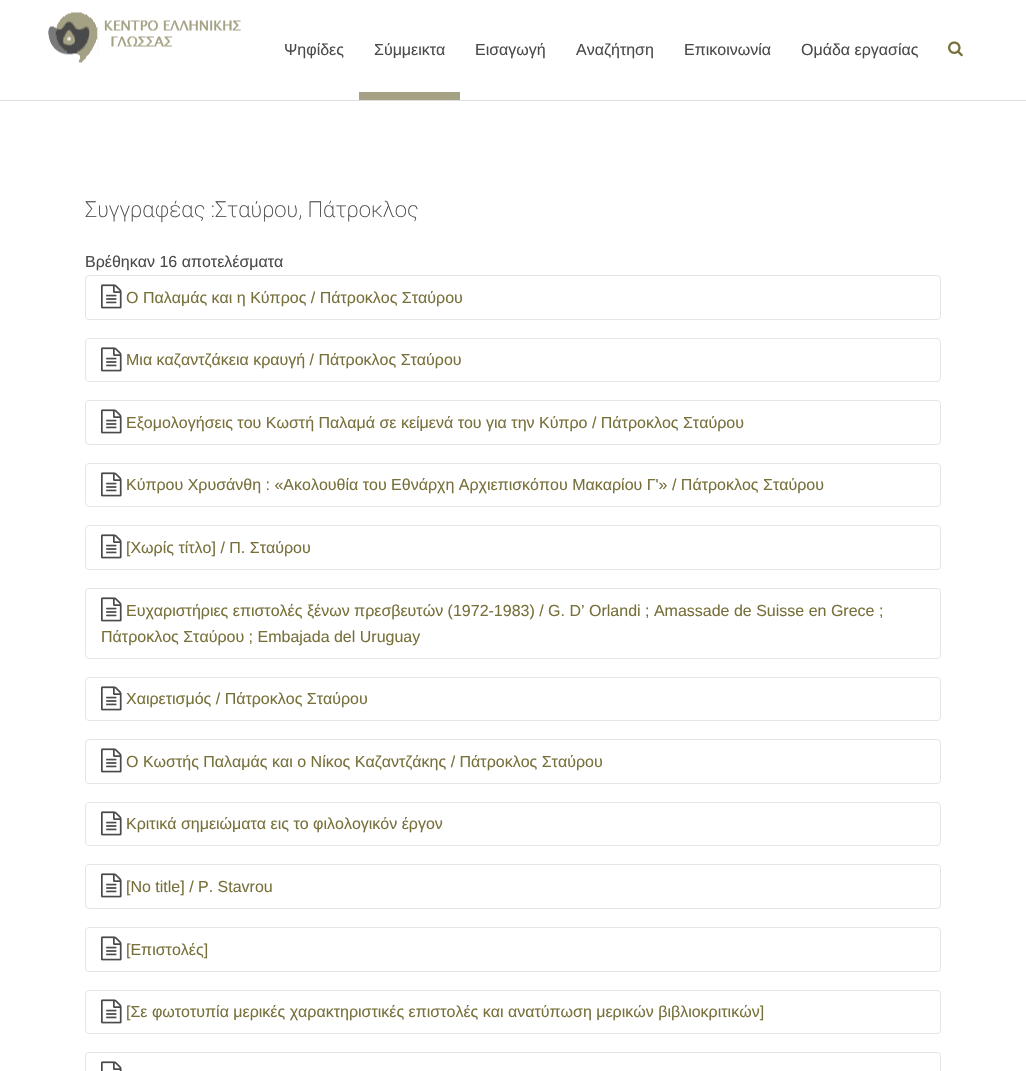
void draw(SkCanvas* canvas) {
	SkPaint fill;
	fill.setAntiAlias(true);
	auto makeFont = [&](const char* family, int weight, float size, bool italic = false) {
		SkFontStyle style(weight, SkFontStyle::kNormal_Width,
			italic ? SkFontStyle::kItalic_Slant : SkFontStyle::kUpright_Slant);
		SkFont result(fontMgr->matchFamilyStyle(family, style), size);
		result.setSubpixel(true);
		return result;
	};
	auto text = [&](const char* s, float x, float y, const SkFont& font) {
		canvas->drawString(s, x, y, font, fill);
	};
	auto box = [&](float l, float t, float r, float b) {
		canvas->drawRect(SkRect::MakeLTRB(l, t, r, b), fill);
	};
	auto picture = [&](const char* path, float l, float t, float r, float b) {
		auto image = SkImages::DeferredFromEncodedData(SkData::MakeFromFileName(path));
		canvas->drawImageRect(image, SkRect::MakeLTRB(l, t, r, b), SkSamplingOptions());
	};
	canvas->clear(0xFFFFFFFF);
	picture("image0.png", 48, 12, 241, 63);
	fill.setColor(0xFFA5A184);
	box(359, 92, 460, 100);
	picture("image1.png", 948, 41, 963, 57);
	fill.setColor(0xFFDDDDDD);
	box(0, 100, 1026, 101);
	fill.setStyle(SkPaint::kStroke_Style);
	fill.setStrokeWidth(1);
	fill.setColor(0xFFE5E5E5);
	canvas->drawRoundRect(SkRect::MakeLTRB(85.5f, 275.5f, 940.5f, 319.5f), 3.5f, 3.5f, fill);
	picture("image2.png", 101, 284, 122, 309);
	canvas->drawRoundRect(SkRect::MakeLTRB(85.5f, 338.5f, 940.5f, 381.5f), 3.5f, 3.5f, fill);
	picture("image2.png", 101, 347, 122, 372);
	canvas->drawRoundRect(SkRect::MakeLTRB(85.5f, 400.5f, 940.5f, 444.5f), 3.5f, 3.5f, fill);
	picture("image2.png", 101, 409, 122, 434);
	canvas->drawRoundRect(SkRect::MakeLTRB(85.5f, 463.5f, 940.5f, 506.5f), 3.5f, 3.5f, fill);
	picture("image2.png", 101, 472, 122, 497);
	canvas->drawRoundRect(SkRect::MakeLTRB(85.5f, 525.5f, 940.5f, 569.5f), 3.5f, 3.5f, fill);
	picture("image2.png", 101, 534, 122, 559);
	canvas->drawRoundRect(SkRect::MakeLTRB(85.5f, 588.5f, 940.5f, 658.5f), 3.5f, 3.5f, fill);
	picture("image2.png", 101, 597, 122, 622);
	canvas->drawRoundRect(SkRect::MakeLTRB(85.5f, 677.5f, 940.5f, 720.5f), 3.5f, 3.5f, fill);
	picture("image2.png", 101, 686, 122, 711);
	canvas->drawRoundRect(SkRect::MakeLTRB(85.5f, 739.5f, 940.5f, 783.5f), 3.5f, 3.5f, fill);
	picture("image2.png", 101, 748, 122, 773);
	canvas->drawRoundRect(SkRect::MakeLTRB(85.5f, 802.5f, 940.5f, 845.5f), 3.5f, 3.5f, fill);
	picture("image2.png", 101, 811, 122, 836);
	canvas->drawRoundRect(SkRect::MakeLTRB(85.5f, 864.5f, 940.5f, 908.5f), 3.5f, 3.5f, fill);
	picture("image2.png", 101, 873, 122, 898);
	canvas->drawRoundRect(SkRect::MakeLTRB(85.5f, 927.5f, 940.5f, 971.5f), 3.5f, 3.5f, fill);
	picture("image2.png", 101, 936, 122, 961);
	canvas->drawRoundRect(SkRect::MakeLTRB(85.5f, 990.5f, 940.5f, 1033.5f), 3.5f, 3.5f, fill);
	picture("image2.png", 101, 999, 122, 1024);
	canvas->drawRoundRect(SkRect::MakeLTRB(85.5f, 1052.5f, 940.5f, 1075.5f), 3.5f, 3.5f, fill);
	picture("image3.png", 101, 1061, 122, 1071);
	auto font1 = makeFont("Liberation Sans", 400, 16);
	fill.setStyle(SkPaint::kFill_Style);
	fill.setColor(0xFF4A4A4A);
	text("Ψηφίδες", 284, 55, font1);
	text("Σύμμεικτα", 374, 55, font1);
	text("Εισαγωγή", 475, 55, font1);
	text("Αναζήτηση", 576, 55, font1);
	text("Επικοινωνία", 684, 55, font1);
	text("Ομάδα εργασίας", 801, 55, font1);
	auto font2 = makeFont("Roboto", 200, 22);
	text("Συγγραφέας :Σταύρου, Πάτροκλος", 85, 217, font2);
	text("Βρέθηκαν 16 αποτελέσματα", 85, 267, font1);
	fill.setColor(0xFF78703A);
	text("Ο Παλαμάς και η Κύπρος / Πάτροκλος Σταύρου", 126, 303, font1);
	text("Μια καζαντζάκεια κραυγή / Πάτροκλος Σταύρου", 126, 365, font1);
	text("Εξομολογήσεις του Κωστή Παλαμά σε κείμενά του για την Κύπρο / Πάτροκλος Σταύρου", 126, 428, font1);
	text("Κύπρου Χρυσάνθη : «Ακολουθία του Εθνάρχη Αρχιεπισκόπου Μακαρίου Γ'» / Πάτροκλος Σταύρου", 126, 490, font1);
	text("[Χωρίς τίτλο] / Π. Σταύρου", 126, 553, font1);
	text("Ευχαριστήριες επιστολές ξένων πρεσβευτών (1972-1983) / G. D’ Orlandi ; Amassade de Suisse en Grece ;", 126, 616, font1);
	text("Πάτροκλος Σταύρου ; Embajada del Uruguay", 101, 642, font1);
	text("Χαιρετισμός / Πάτροκλος Σταύρου", 126, 704, font1);
	text("Ο Κωστής Παλαμάς και ο Νίκος Καζαντζάκης / Πάτροκλος Σταύρου", 126, 767, font1);
	text("Κριτικά σημειώματα εις το φιλολογικόν έργον", 126, 829, font1);
	text("[No title] / P. Stavrou", 126, 892, font1);
	text("[Επιστολές]", 126, 955, font1);
	text("[Σε φωτοτυπία μερικές χαρακτηριστικές επιστολές και ανατύπωση μερικών βιβλιοκριτικών]", 126, 1017, font1);
}
